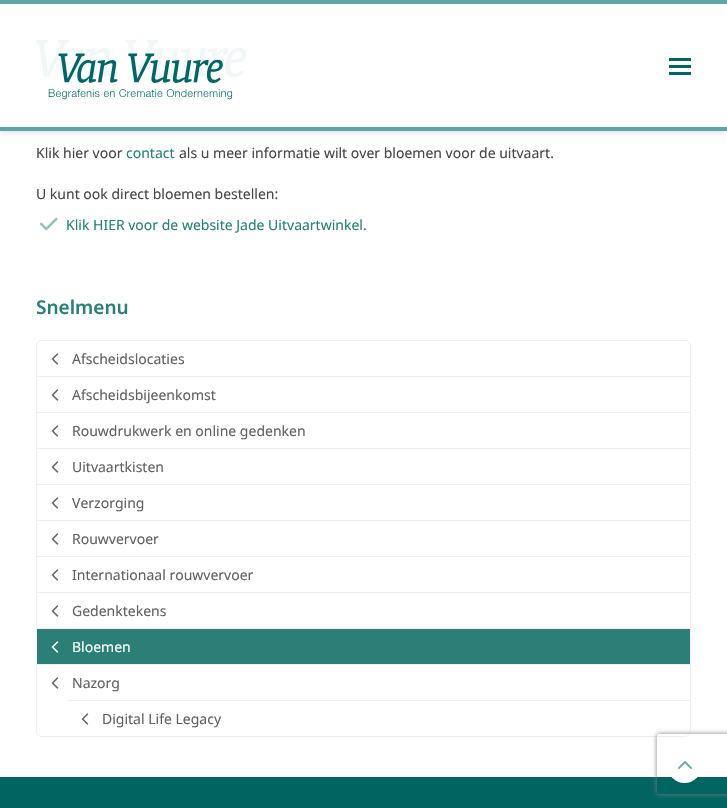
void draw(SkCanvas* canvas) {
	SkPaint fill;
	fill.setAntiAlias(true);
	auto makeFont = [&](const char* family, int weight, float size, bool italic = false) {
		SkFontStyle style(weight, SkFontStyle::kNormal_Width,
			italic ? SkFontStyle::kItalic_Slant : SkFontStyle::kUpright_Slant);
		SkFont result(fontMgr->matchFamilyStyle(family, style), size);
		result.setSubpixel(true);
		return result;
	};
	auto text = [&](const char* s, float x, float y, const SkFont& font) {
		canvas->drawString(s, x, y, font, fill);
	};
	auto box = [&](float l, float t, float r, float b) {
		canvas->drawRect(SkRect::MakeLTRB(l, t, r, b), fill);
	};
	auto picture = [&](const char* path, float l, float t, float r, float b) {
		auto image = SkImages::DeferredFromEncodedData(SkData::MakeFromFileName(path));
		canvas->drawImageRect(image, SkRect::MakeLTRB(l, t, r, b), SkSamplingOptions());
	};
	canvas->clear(0xFFFFFFFF);
	fill.setColor(0x1A000000);
	fill.setMaskFilter(SkMaskFilter::MakeBlur(kNormal_SkBlurStyle, 2.5f));
	canvas->drawRect(SkRect::MakeLTRB(0, 2, 727, 133), fill);
	fill.setMaskFilter(nullptr);
	fill.setColor(0xFFFFFFFF);
	box(0, 4, 727, 127);
	fill.setColor(0xFF60A4A5);
	box(0, 0, 727, 4);
	box(0, 127, 727, 131);
	picture("image0.png", 36, 40, 246, 100);
	fill.setColor(0xFF006561);
	box(669, 65, 691, 68);
	box(669, 58, 691, 61);
	box(669, 72, 691, 75);
	picture("image1.png", 40, 217, 58, 231);
	fill.setStyle(SkPaint::kStroke_Style);
	fill.setStrokeWidth(1);
	fill.setColor(0xFFEEEEEE);
	canvas->drawRoundRect(SkRect::MakeLTRB(36.5f, 340.5f, 690.5f, 736.5f), 5.5f, 5.5f, fill);
	fill.setStyle(SkPaint::kFill_Style);
	box(37, 376, 690, 377);
	picture("image2.png", 51, 353, 59, 365);
	box(37, 412, 690, 413);
	picture("image2.png", 51, 389, 59, 401);
	box(37, 448, 690, 449);
	picture("image2.png", 51, 425, 59, 437);
	box(37, 484, 690, 485);
	picture("image2.png", 51, 461, 59, 473);
	box(37, 520, 690, 521);
	picture("image2.png", 51, 497, 59, 509);
	box(37, 556, 690, 557);
	picture("image2.png", 51, 533, 59, 545);
	box(37, 592, 690, 593);
	picture("image2.png", 51, 569, 59, 581);
	box(37, 628, 690, 629);
	picture("image2.png", 51, 605, 59, 617);
	box(37, 664, 690, 665);
	fill.setColor(0xFF2B7F77);
	box(37, 629, 690, 664);
	picture("image3.png", 51, 641, 59, 653);
	picture("image2.png", 51, 677, 59, 689);
	fill.setColor(0xFFEEEEEE);
	box(67, 700, 690, 701);
	picture("image2.png", 81, 713, 89, 725);
	fill.setColor(0xFF006561);
	box(0, 777, 727, 808);
	canvas->save();
	canvas->clipPath(SkPathBuilder(SkPathFillType::kEvenOdd).moveTo(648, 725).lineTo(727, 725).lineTo(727, 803).lineTo(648, 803).close().moveTo(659, 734).lineTo(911, 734).cubicTo(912, 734, 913, 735, 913, 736).lineTo(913, 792).cubicTo(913, 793, 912, 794, 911, 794).lineTo(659, 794).cubicTo(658, 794, 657, 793, 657, 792).lineTo(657, 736).cubicTo(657, 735, 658, 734, 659, 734).close().detach(), true);
	fill.setColor(0xFF808080);
	fill.setMaskFilter(SkMaskFilter::MakeBlur(kNormal_SkBlurStyle, 2.5f));
	canvas->drawRoundRect(SkRect::MakeLTRB(657, 734, 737, 794), 2, 2, fill);
	fill.setMaskFilter(nullptr);
	canvas->restore();
	fill.setColor(0xFFFFFFFF);
	canvas->drawCircle(684.5f, 765.5f, 17.5f, fill);
	picture("image4.png", 678, 761, 692, 769);
	auto font1 = makeFont("Noto Sans", 400, 14);
	fill.setColor(0xFF474747);
	text("Klik hier voor", 36, 158, font1);
	fill.setColor(0xFF2B7F77);
	text("contact", 126, 158, font1);
	fill.setColor(0xFF474747);
	text("als u meer informatie wilt over bloemen voor de uitvaart.", 179, 158, font1);
	text("U kunt ook direct bloemen bestellen:", 36, 199, font1);
	fill.setColor(0xFF2B7F77);
	text("Klik HIER voor de website Jade Uitvaartwinkel.", 66, 230, font1);
	auto font2 = makeFont("Noto Sans", 600, 19);
	text("Snelmenu", 36, 314, font2);
	fill.setColor(0xFF616161);
	text("Afscheidslocaties", 72, 364, font1);
	text("Afscheidsbijeenkomst", 72, 400, font1);
	text("Rouwdrukwerk en online gedenken", 72, 436, font1);
	text("Uitvaartkisten", 72, 472, font1);
	text("Verzorging", 72, 508, font1);
	text("Rouwvervoer", 72, 544, font1);
	text("Internationaal rouwvervoer", 72, 580, font1);
	text("Gedenktekens", 72, 616, font1);
	fill.setColor(0xFFFFFFFF);
	text("Bloemen", 72, 652, font1);
	fill.setColor(0xFF616161);
	text("Nazorg", 72, 688, font1);
	text("Digital Life Legacy", 102, 724, font1);
}
